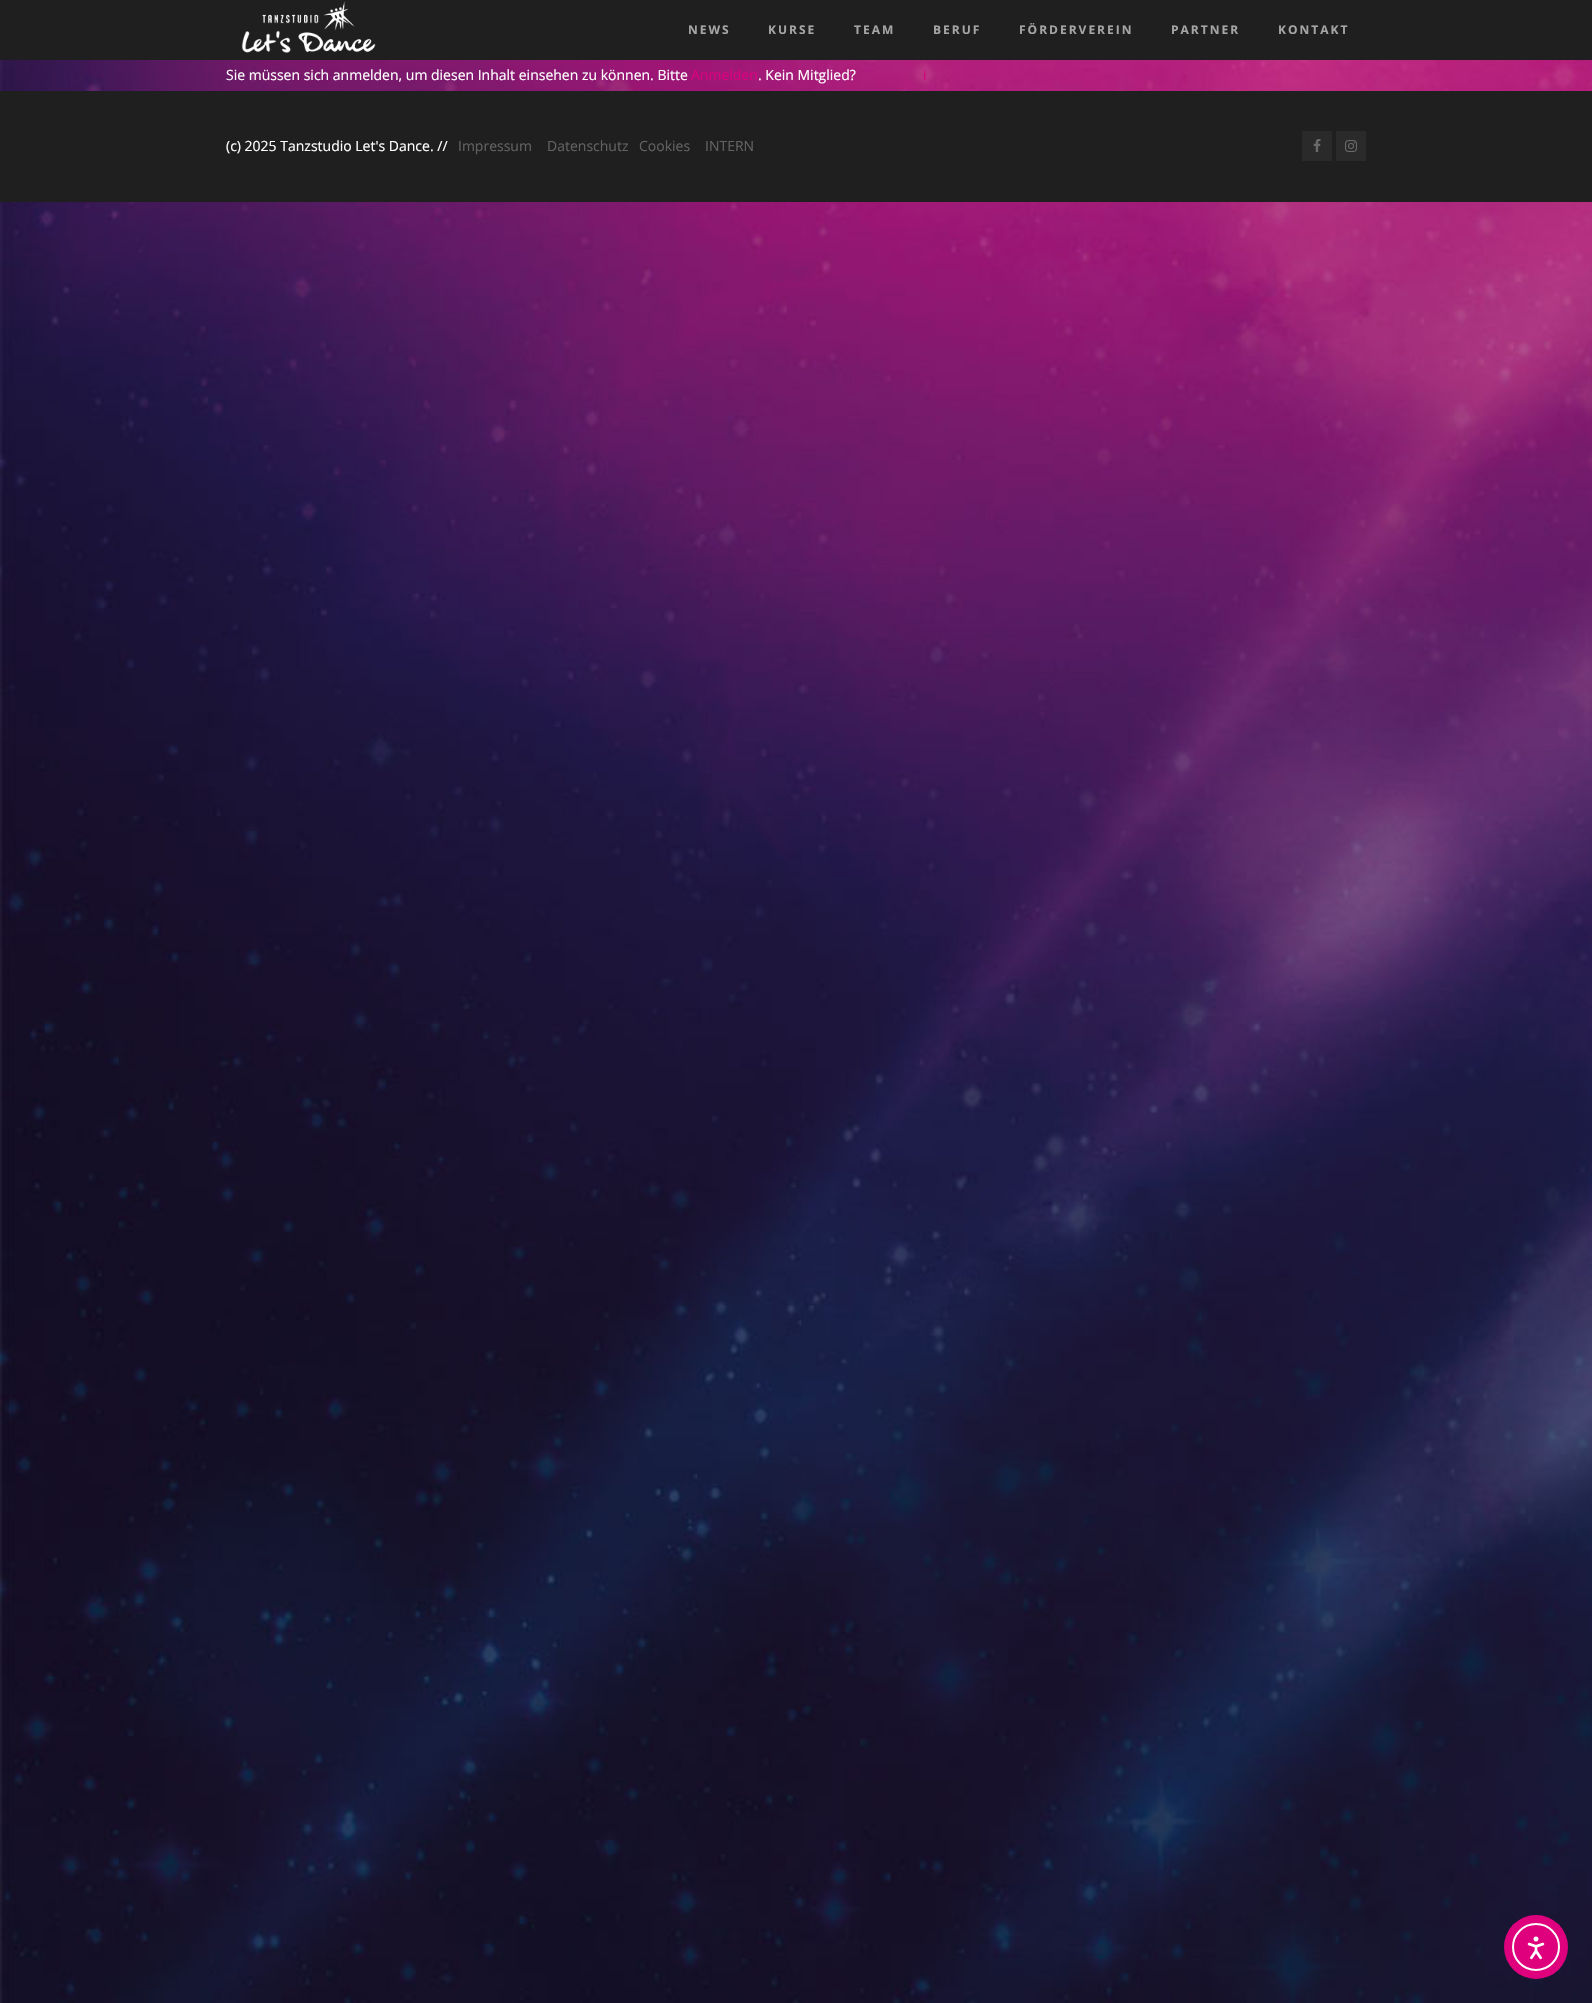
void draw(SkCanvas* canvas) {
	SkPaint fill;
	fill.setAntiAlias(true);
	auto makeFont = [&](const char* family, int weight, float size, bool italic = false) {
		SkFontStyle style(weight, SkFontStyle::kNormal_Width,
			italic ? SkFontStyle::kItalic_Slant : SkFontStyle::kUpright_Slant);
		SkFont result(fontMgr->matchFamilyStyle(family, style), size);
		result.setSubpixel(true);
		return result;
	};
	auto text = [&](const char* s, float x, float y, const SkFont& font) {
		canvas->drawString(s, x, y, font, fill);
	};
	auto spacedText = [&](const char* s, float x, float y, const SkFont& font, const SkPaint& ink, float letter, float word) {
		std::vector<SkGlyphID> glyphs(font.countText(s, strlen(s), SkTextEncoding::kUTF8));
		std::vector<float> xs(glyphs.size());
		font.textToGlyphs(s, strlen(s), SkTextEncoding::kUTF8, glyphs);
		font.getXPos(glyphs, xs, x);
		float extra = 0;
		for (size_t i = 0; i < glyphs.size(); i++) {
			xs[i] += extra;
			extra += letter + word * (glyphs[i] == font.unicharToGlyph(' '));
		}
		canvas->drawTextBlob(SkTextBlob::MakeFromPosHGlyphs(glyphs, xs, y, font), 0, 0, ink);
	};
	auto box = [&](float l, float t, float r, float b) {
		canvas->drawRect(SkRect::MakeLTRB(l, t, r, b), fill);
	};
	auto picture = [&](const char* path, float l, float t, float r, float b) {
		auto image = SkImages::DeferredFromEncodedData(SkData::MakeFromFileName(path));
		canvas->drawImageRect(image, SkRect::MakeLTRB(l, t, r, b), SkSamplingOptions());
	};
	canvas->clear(0xFFFFFFFF);
	picture("image0.png", 0, 60, 1592, 2003);
	fill.setColor(0xFF1F1F1F);
	box(0, 0, 1592, 60);
	picture("image1.png", 241, 1, 376, 53);
	box(0, 91, 1592, 202);
	fill.setColor(0xFF2A2A2A);
	box(1302, 131, 1332, 161);
	picture("image2.png", 1313, 139, 1321, 152);
	box(1336, 131, 1366, 161);
	picture("image3.png", 1345, 140, 1357, 152);
	fill.setColor(0xFFDE007D);
	canvas->drawCircle(1536, 1947, 32, fill);
	fill.setStyle(SkPaint::kStroke_Style);
	fill.setStrokeWidth(2);
	fill.setColor(0xFFFFFFFF);
	canvas->drawCircle(1536, 1947, 23, fill);
	picture("image4.png", 1527, 1936, 1545, 1960);
	auto font1 = makeFont("Open Sans", 700, 12);
	fill.setStyle(SkPaint::kFill_Style);
	fill.setColor(0xFFA5A5A5);
	spacedText("NEWS", 688, 34, font1, fill, 2, 0);
	spacedText("KURSE", 768, 34, font1, fill, 2, 0);
	spacedText("TEAM", 854, 34, font1, fill, 2, 0);
	spacedText("BERUF", 933, 34, font1, fill, 2, 0);
	spacedText("FÖRDERVEREIN", 1019, 34, font1, fill, 2, 0);
	spacedText("PARTNER", 1171, 34, font1, fill, 2, 0);
	spacedText("KONTAKT", 1278, 34, font1, fill, 2, 0);
	auto font2 = makeFont("Open Sans", 400, 14);
	fill.setColor(0xFFFFFFFF);
	text("Sie müssen sich anmelden, um diesen Inhalt einsehen zu können. Bitte", 226, 80, font2);
	fill.setColor(0xFFDD007D);
	text("Anmelden", 691, 80, font2);
	fill.setColor(0xFFFFFFFF);
	text(". Kein Mitglied?", 758, 80, font2);
	fill.setColor(0xFFDD007D);
	text("i", 923, 80, font2);
	fill.setColor(0xFFFFFFFF);
	text("(c) 2025 Tanzstudio Let's Dance. //", 226, 151, font2);
	fill.setColor(0xFF626262);
	text("Impressum", 458, 151, font2);
	text("Datenschutz", 547, 151, font2);
	text("Cookies", 639, 151, font2);
	text("INTERN", 705, 151, font2);
}
